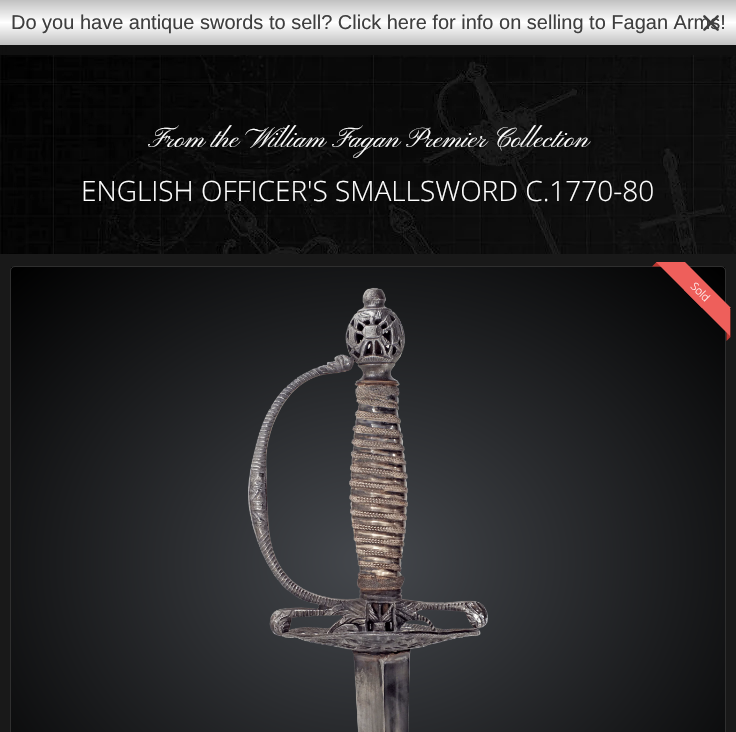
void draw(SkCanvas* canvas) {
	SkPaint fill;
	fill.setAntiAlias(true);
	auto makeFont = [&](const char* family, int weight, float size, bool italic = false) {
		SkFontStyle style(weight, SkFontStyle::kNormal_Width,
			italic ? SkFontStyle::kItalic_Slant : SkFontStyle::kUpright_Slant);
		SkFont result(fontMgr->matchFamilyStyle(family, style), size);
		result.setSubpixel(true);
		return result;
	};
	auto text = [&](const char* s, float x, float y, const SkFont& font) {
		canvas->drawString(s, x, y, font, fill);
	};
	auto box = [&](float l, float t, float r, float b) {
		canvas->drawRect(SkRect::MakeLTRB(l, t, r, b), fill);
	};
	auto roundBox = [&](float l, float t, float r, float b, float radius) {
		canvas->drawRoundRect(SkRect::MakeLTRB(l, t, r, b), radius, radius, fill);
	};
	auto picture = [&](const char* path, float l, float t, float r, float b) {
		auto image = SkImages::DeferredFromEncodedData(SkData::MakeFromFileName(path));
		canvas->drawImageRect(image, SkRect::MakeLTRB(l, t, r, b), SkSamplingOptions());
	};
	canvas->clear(0xFF191919);
	picture("image1.png", 0, 45, 736, 254);
	fill.setColor(0xFA0F0F0F);
	roundBox(0, 0, 736, 55, 1);
	{
		const SkColor colors[] = {0xFFC1C1C1, 0xFFFFFFFF, 0xFFC1C1C1};
		const float stops[] = {0, 0.5f, 1};
		const SkPoint ends[] = {{368, 0}, {368, 45}};
		fill.setShader(SkGradientShader::MakeLinear(ends, colors, stops, 3, SkTileMode::kClamp));
		fill.setAlpha(255);
	}
	box(0, 0, 736, 45);
	{
		const SkColor colors[] = {0xFF45484D, 0xFF000000};
		const float stops[] = {0, 1};
		SkMatrix m = SkMatrix::Translate(368, 562).preScale(505, 416);
		fill.setShader(SkGradientShader::MakeRadial({0, 0}, 1, colors, stops, 2, SkTileMode::kClamp, 0, &m));
		fill.setAlpha(255);
	}
	box(11, 267, 725, 732);
	fill.setStyle(SkPaint::kStroke_Style);
	fill.setStrokeWidth(1);
	fill.setShader(nullptr);
	fill.setColor(0xFF2F2F2F);
	canvas->drawRoundRect(SkRect::MakeLTRB(10.5f, 266.5f, 725.5f, 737.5f), 4.5f, 4.5f, fill);
	picture("image2.png", 248, 287, 488, 732);
	fill.setStyle(SkPaint::kFill_Style);
	fill.setColor(0xFFBD362F);
	canvas->drawPath(SkPathBuilder().moveTo(656.5f, 262).lineTo(684.5f, 262).lineTo(680.5f, 266.5f).lineTo(652, 266.5f).close().detach(), fill);
	fill.setColor(0xFFEE5F5B);
	canvas->drawPath(SkPathBuilder().moveTo(685, 262).lineTo(731, 308).lineTo(702, 308).lineTo(656, 262).close().detach(), fill);
	fill.setColor(0xFFBD362F);
	canvas->drawPath(SkPathBuilder().moveTo(730.5f, 308.5f).lineTo(730.5f, 337).lineTo(726.5f, 341).lineTo(726.5f, 313).close().detach(), fill);
	fill.setColor(0xFFEE5F5B);
	canvas->drawPath(SkPathBuilder().moveTo(684, 262).lineTo(730, 308).lineTo(730, 336).lineTo(684, 290).close().detach(), fill);
	auto font1 = makeFont("Liberation Sans", 400, 20);
	fill.setColor(0xFF3F3F3F);
	text("Do you have antique swords to sell? Click here for info on selling to Fagan Arms!", 11, 29, font1);
	picture("image0.png", 703, 15, 719, 31);
	auto font2 = makeFont("Pinyon Script", 400, 28);
	fill.setColor(0xFFFFFFFF);
	text("From the William Fagan Premier Collection", 148, 147, font2);
	auto font3 = makeFont("Open Sans", 300, 28);
	text("ENGLISH OFFICER'S SMALLSWORD C.1770-80", 81, 201, font3);
	auto font4 = makeFont("Open Sans", 300, 11);
	canvas->save();
	canvas->rotate(45, 690, 287);
	text("Sold", 690, 287, font4);
	canvas->restore();
}
